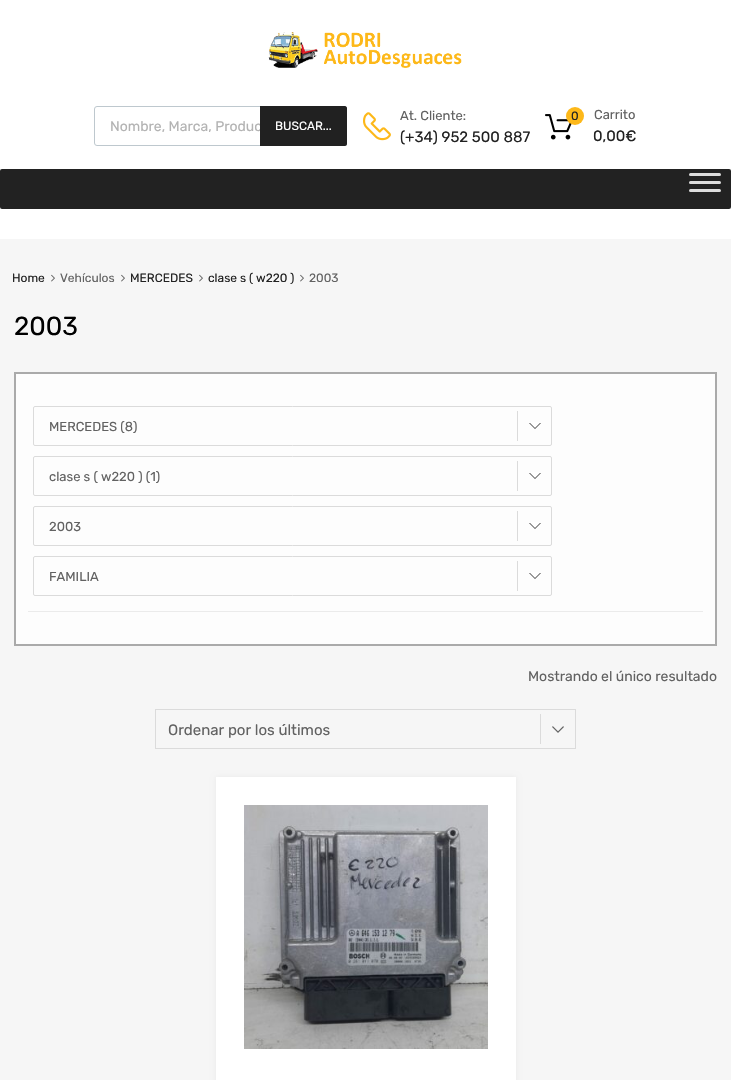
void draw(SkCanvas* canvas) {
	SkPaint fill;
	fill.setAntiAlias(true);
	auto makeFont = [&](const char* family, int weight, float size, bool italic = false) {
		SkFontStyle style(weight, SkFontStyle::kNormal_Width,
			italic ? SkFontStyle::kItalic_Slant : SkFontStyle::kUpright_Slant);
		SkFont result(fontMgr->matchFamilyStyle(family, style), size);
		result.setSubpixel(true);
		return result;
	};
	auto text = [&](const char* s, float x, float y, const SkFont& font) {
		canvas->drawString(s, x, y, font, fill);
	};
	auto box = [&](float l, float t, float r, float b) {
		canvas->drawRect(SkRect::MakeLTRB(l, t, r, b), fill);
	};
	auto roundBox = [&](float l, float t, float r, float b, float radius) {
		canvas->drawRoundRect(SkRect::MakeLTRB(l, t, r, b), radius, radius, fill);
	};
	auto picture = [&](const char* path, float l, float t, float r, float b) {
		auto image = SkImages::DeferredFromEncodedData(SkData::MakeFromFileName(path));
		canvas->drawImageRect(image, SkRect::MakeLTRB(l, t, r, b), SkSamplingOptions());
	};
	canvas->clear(0xFFF6F6F6);
	fill.setColor(0xFFFFFFFF);
	box(0, 0, 731, 239);
	picture("image0.png", 268, 32, 462, 68);
	fill.setStyle(SkPaint::kStroke_Style);
	fill.setStrokeWidth(1);
	fill.setColor(0xFFBEC8CE);
	canvas->drawRoundRect(SkRect::MakeLTRB(94.5f, 106.5f, 346.5f, 145.5f), 2.5f, 2.5f, fill);
	picture("image1.png", 363, 112, 391, 141);
	picture("image2.png", 545, 114, 572, 140);
	fill.setStyle(SkPaint::kFill_Style);
	fill.setColor(0xFFFDB819);
	canvas->drawCircle(575, 116, 9, fill);
	fill.setColor(0xFF222222);
	roundBox(0, 169, 731, 209, 2);
	fill.setColor(0xFFDDDDDD);
	roundBox(689, 173, 721, 176, 1.5f);
	roundBox(689, 181, 721, 184, 1.5f);
	roundBox(689, 189, 721, 192, 1.5f);
	picture("image3.png", 51, 274, 55, 282);
	picture("image3.png", 121, 274, 125, 282);
	picture("image3.png", 199, 274, 203, 282);
	picture("image3.png", 300, 274, 304, 282);
	fill.setColor(0xFFFDFDFD);
	canvas->drawRect(SkRect::MakeLTRB(15, 373, 716, 645), fill);
	fill.setStyle(SkPaint::kStroke_Style);
	fill.setStrokeWidth(2);
	fill.setColor(0xFFAAAAAA);
	canvas->drawRect(SkRect::MakeLTRB(15, 373, 716, 645), fill);
	fill.setStyle(SkPaint::kFill_Style);
	fill.setColor(0xFFEBEBEB);
	box(28, 611, 703, 612);
	fill.setStyle(SkPaint::kStroke_Style);
	fill.setStrokeWidth(1);
	fill.setColor(0xFFDBDBDB);
	canvas->drawRoundRect(SkRect::MakeLTRB(33.5f, 406.5f, 551.5f, 445.5f), 1.5f, 1.5f, fill);
	fill.setStyle(SkPaint::kFill_Style);
	box(517, 411, 518, 441);
	fill.setColor(0xFF373737);
	canvas->drawPath(SkPathBuilder().moveTo(529, 423).lineTo(541, 423).lineTo(535, 429).close().detach(), fill);
	fill.setColor(0xFFFFFFFF);
	canvas->drawPath(SkPathBuilder().moveTo(529, 422).lineTo(541, 422).lineTo(535, 428).close().detach(), fill);
	fill.setStyle(SkPaint::kStroke_Style);
	fill.setColor(0xFFDBDBDB);
	canvas->drawRoundRect(SkRect::MakeLTRB(33.5f, 456.5f, 551.5f, 495.5f), 1.5f, 1.5f, fill);
	fill.setStyle(SkPaint::kFill_Style);
	box(517, 461, 518, 491);
	fill.setColor(0xFF373737);
	canvas->drawPath(SkPathBuilder().moveTo(529, 473).lineTo(541, 473).lineTo(535, 479).close().detach(), fill);
	fill.setColor(0xFFFFFFFF);
	canvas->drawPath(SkPathBuilder().moveTo(529, 472).lineTo(541, 472).lineTo(535, 478).close().detach(), fill);
	fill.setStyle(SkPaint::kStroke_Style);
	fill.setColor(0xFFDBDBDB);
	canvas->drawRoundRect(SkRect::MakeLTRB(33.5f, 506.5f, 551.5f, 545.5f), 1.5f, 1.5f, fill);
	fill.setStyle(SkPaint::kFill_Style);
	box(517, 511, 518, 541);
	fill.setColor(0xFF373737);
	canvas->drawPath(SkPathBuilder().moveTo(529, 523).lineTo(541, 523).lineTo(535, 529).close().detach(), fill);
	fill.setColor(0xFFFFFFFF);
	canvas->drawPath(SkPathBuilder().moveTo(529, 522).lineTo(541, 522).lineTo(535, 528).close().detach(), fill);
	fill.setStyle(SkPaint::kStroke_Style);
	fill.setColor(0xFFDBDBDB);
	canvas->drawRoundRect(SkRect::MakeLTRB(33.5f, 556.5f, 551.5f, 595.5f), 1.5f, 1.5f, fill);
	fill.setStyle(SkPaint::kFill_Style);
	box(517, 561, 518, 591);
	fill.setColor(0xFF373737);
	canvas->drawPath(SkPathBuilder().moveTo(529, 573).lineTo(541, 573).lineTo(535, 579).close().detach(), fill);
	fill.setColor(0xFFFFFFFF);
	canvas->drawPath(SkPathBuilder().moveTo(529, 572).lineTo(541, 572).lineTo(535, 578).close().detach(), fill);
	fill.setColor(0xFFDBDBDB);
	box(540, 714, 541, 744);
	picture("image4.png", 552, 726, 564, 733);
	fill.setStyle(SkPaint::kStroke_Style);
	canvas->drawRect(SkRect::MakeLTRB(155.5f, 709.5f, 575.5f, 748.5f), fill);
	fill.setStyle(SkPaint::kFill_Style);
	fill.setColor(0x0D000000);
	fill.setMaskFilter(SkMaskFilter::MakeBlur(kNormal_SkBlurStyle, 2.5f));
	canvas->drawRect(SkRect::MakeLTRB(216, 777, 516, 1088), fill);
	fill.setMaskFilter(nullptr);
	fill.setColor(0xFFFFFFFF);
	box(216, 777, 516, 1080);
	picture("image5.png", 244, 805, 488, 1049);
	auto font1 = makeFont("Rubik", 300, 14);
	fill.setColor(0xFFB3B3B3);
	text("Nombre, Marca, Produc", 110, 131, font1);
	fill.setColor(0xFF212121);
	canvas->drawPath(SkPathBuilder().moveTo(260, 106).lineTo(345, 106).cubicTo(346, 106, 347, 107, 347, 108).lineTo(347, 144).cubicTo(347, 145, 346, 146, 345, 146).lineTo(260, 146).close().detach(), fill);
	auto font2 = makeFont("Rubik", 300, 12);
	fill.setColor(0xFFFFFFFF);
	text("BUSCAR...", 275, 130, font2);
	auto font3 = makeFont("Rubik", 300, 13);
	fill.setColor(0xFF626262);
	text("At. Cliente:", 400, 120, font3);
	auto font4 = makeFont("Rubik", 300, 15);
	fill.setColor(0xFF212121);
	text("(+34) 952 500 887", 400, 142, font4);
	text("0", 571, 120, font2);
	fill.setColor(0xFF626262);
	text("Carrito", 594, 119, font3);
	fill.setColor(0xFF212121);
	text("0,00€", 593, 141, font4);
	text("Home", 12, 282, font2);
	fill.setColor(0xFF626262);
	text("Vehículos", 60, 282, font2);
	fill.setColor(0xFF212121);
	text("MERCEDES", 130, 282, font2);
	text("clase s ( w220 )", 208, 282, font2);
	fill.setColor(0xFF626262);
	text("2003", 309, 282, font2);
	auto font5 = makeFont("Rubik", 300, 26);
	fill.setColor(0xFF000000);
	text("2003", 14, 335, font5);
	fill.setColor(0xFF626262);
	text("MERCEDES (8)", 49, 431, font3);
	text("clase s ( w220 ) (1)", 49, 481, font3);
	text("2003", 49, 531, font3);
	text("FAMILIA", 49, 581, font3);
	text("Mostrando el único resultado", 528, 681, font1);
	text("Ordenar por los últimos", 168, 735, font4);
}
